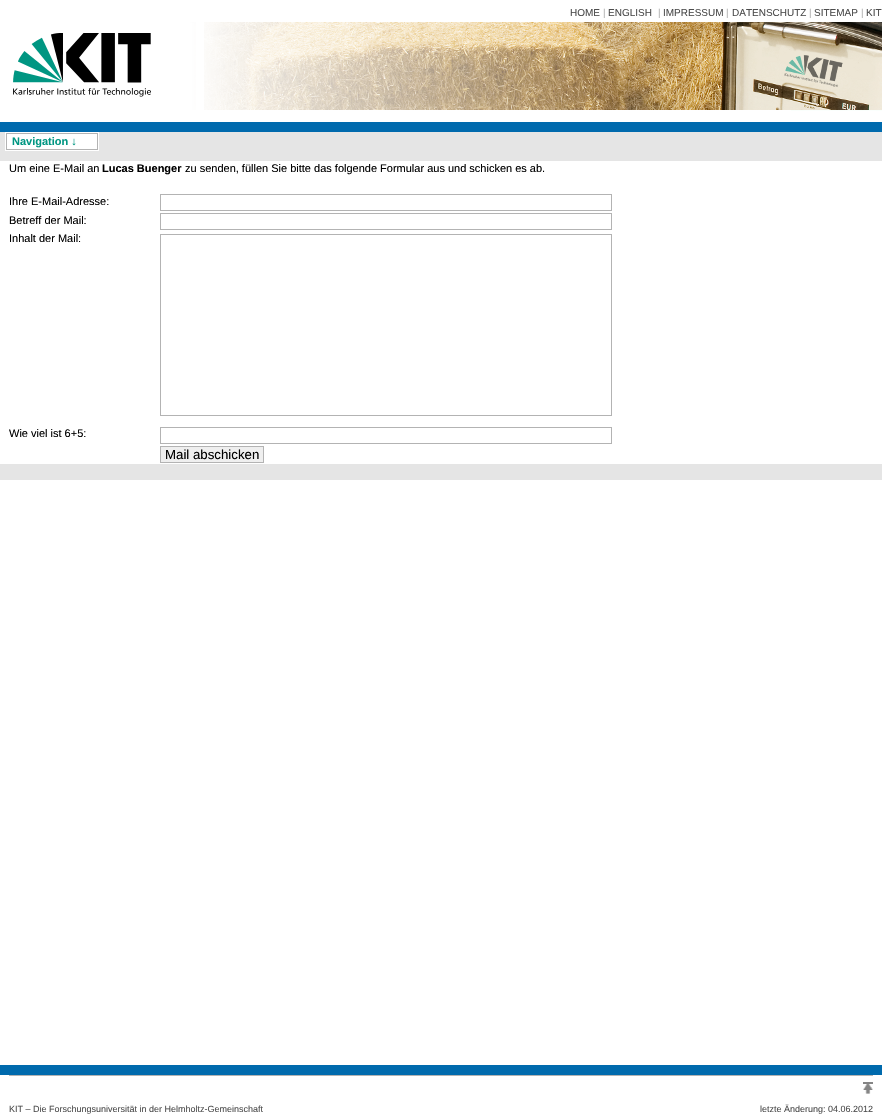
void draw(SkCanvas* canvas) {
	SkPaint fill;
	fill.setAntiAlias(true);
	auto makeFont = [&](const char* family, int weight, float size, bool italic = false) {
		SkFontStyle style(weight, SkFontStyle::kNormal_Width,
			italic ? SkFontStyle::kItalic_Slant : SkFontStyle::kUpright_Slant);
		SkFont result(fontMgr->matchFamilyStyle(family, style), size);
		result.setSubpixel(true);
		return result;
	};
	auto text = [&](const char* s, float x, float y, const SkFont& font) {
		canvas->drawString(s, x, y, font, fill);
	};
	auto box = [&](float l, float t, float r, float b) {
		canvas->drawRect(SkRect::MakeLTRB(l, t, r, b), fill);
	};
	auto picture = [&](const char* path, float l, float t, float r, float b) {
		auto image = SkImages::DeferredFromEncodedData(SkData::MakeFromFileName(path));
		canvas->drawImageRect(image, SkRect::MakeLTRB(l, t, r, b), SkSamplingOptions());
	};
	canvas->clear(0xFFFFFFFF);
	picture("image1.png", 188, 22, 882, 111);
	fill.setColor(0xFFFFFFFF);
	box(196, 22, 204, 110);
	picture("image0.png", 13, 33, 151, 97);
	fill.setColor(0xFF006AAD);
	box(0, 122, 882, 132);
	fill.setColor(0xFFE5E5E5);
	box(0, 132, 882, 161);
	fill.setColor(0xFFFFFFFF);
	box(5, 132, 99, 151);
	fill.setStyle(SkPaint::kStroke_Style);
	fill.setStrokeWidth(1);
	fill.setColor(0xFFB3B3B3);
	canvas->drawRect(SkRect::MakeLTRB(6.5f, 133.5f, 97.5f, 149.5f), fill);
	canvas->drawRect(SkRect::MakeLTRB(160.5f, 194.5f, 611.5f, 210.5f), fill);
	canvas->drawRect(SkRect::MakeLTRB(160.5f, 213.5f, 611.5f, 229.5f), fill);
	canvas->drawRect(SkRect::MakeLTRB(160.5f, 234.5f, 611.5f, 415.5f), fill);
	canvas->drawRect(SkRect::MakeLTRB(160.5f, 427.5f, 611.5f, 443.5f), fill);
	fill.setStyle(SkPaint::kFill_Style);
	fill.setColor(0xFFEFEFEF);
	canvas->drawRect(SkRect::MakeLTRB(160.5f, 446.5f, 263.5f, 462.5f), fill);
	fill.setStyle(SkPaint::kStroke_Style);
	fill.setColor(0xFFB3B3B3);
	canvas->drawRect(SkRect::MakeLTRB(160.5f, 446.5f, 263.5f, 462.5f), fill);
	fill.setStyle(SkPaint::kFill_Style);
	fill.setColor(0xFFE5E5E5);
	box(0, 464, 882, 480);
	fill.setColor(0xFF006AAD);
	box(0, 1065, 882, 1075);
	fill.setColor(0xFFB3B3B3);
	box(9, 1075, 873, 1076);
	picture("image2.png", 863, 1082, 873, 1094);
	auto font1 = makeFont("Liberation Sans", 400, 10);
	fill.setColor(0xFF4D4D4D);
	text("HOME", 570, 16, font1);
	fill.setColor(0xFFB3B3B3);
	text("|", 603, 16, font1);
	fill.setColor(0xFF4D4D4D);
	text("ENGLISH", 608, 16, font1);
	fill.setColor(0xFFB3B3B3);
	text("|", 658, 16, font1);
	fill.setColor(0xFF4D4D4D);
	text("IMPRESSUM", 663, 16, font1);
	fill.setColor(0xFFB3B3B3);
	text("|", 726, 16, font1);
	fill.setColor(0xFF4D4D4D);
	text("DATENSCHUTZ", 732, 16, font1);
	fill.setColor(0xFFB3B3B3);
	text("|", 809, 16, font1);
	fill.setColor(0xFF4D4D4D);
	text("SITEMAP", 814, 16, font1);
	fill.setColor(0xFFB3B3B3);
	text("|", 861, 16, font1);
	fill.setColor(0xFF4D4D4D);
	text("KIT", 866, 16, font1);
	auto font2 = makeFont("Liberation Sans", 700, 11);
	fill.setColor(0xFF009682);
	text("Navigation ↓", 12, 145, font2);
	auto font3 = makeFont("Liberation Sans", 400, 11);
	fill.setColor(0xFF000000);
	text("Um eine E-Mail an", 9, 172, font3);
	text("Lucas Buenger", 102, 172, font2);
	text("zu senden, füllen Sie bitte das folgende Formular aus und schicken es ab.", 185, 172, font3);
	text("Ihre E-Mail-Adresse:", 9, 205, font3);
	text("Betreff der Mail:", 9, 224, font3);
	text("Inhalt der Mail:", 9, 242, font3);
	text("Wie viel ist 6+5:", 9, 437, font3);
	auto font4 = makeFont("Liberation Sans", 400, 13.25f);
	text("Mail abschicken", 165, 459, font4);
	auto font5 = makeFont("Liberation Sans", 400, 9);
	fill.setColor(0xFF4D4D4D);
	text("KIT – Die Forschungsuniversität in der Helmholtz-Gemeinschaft", 9, 1112, font5);
	text("letzte Änderung: 04.06.2012", 760, 1112, font5);
}
